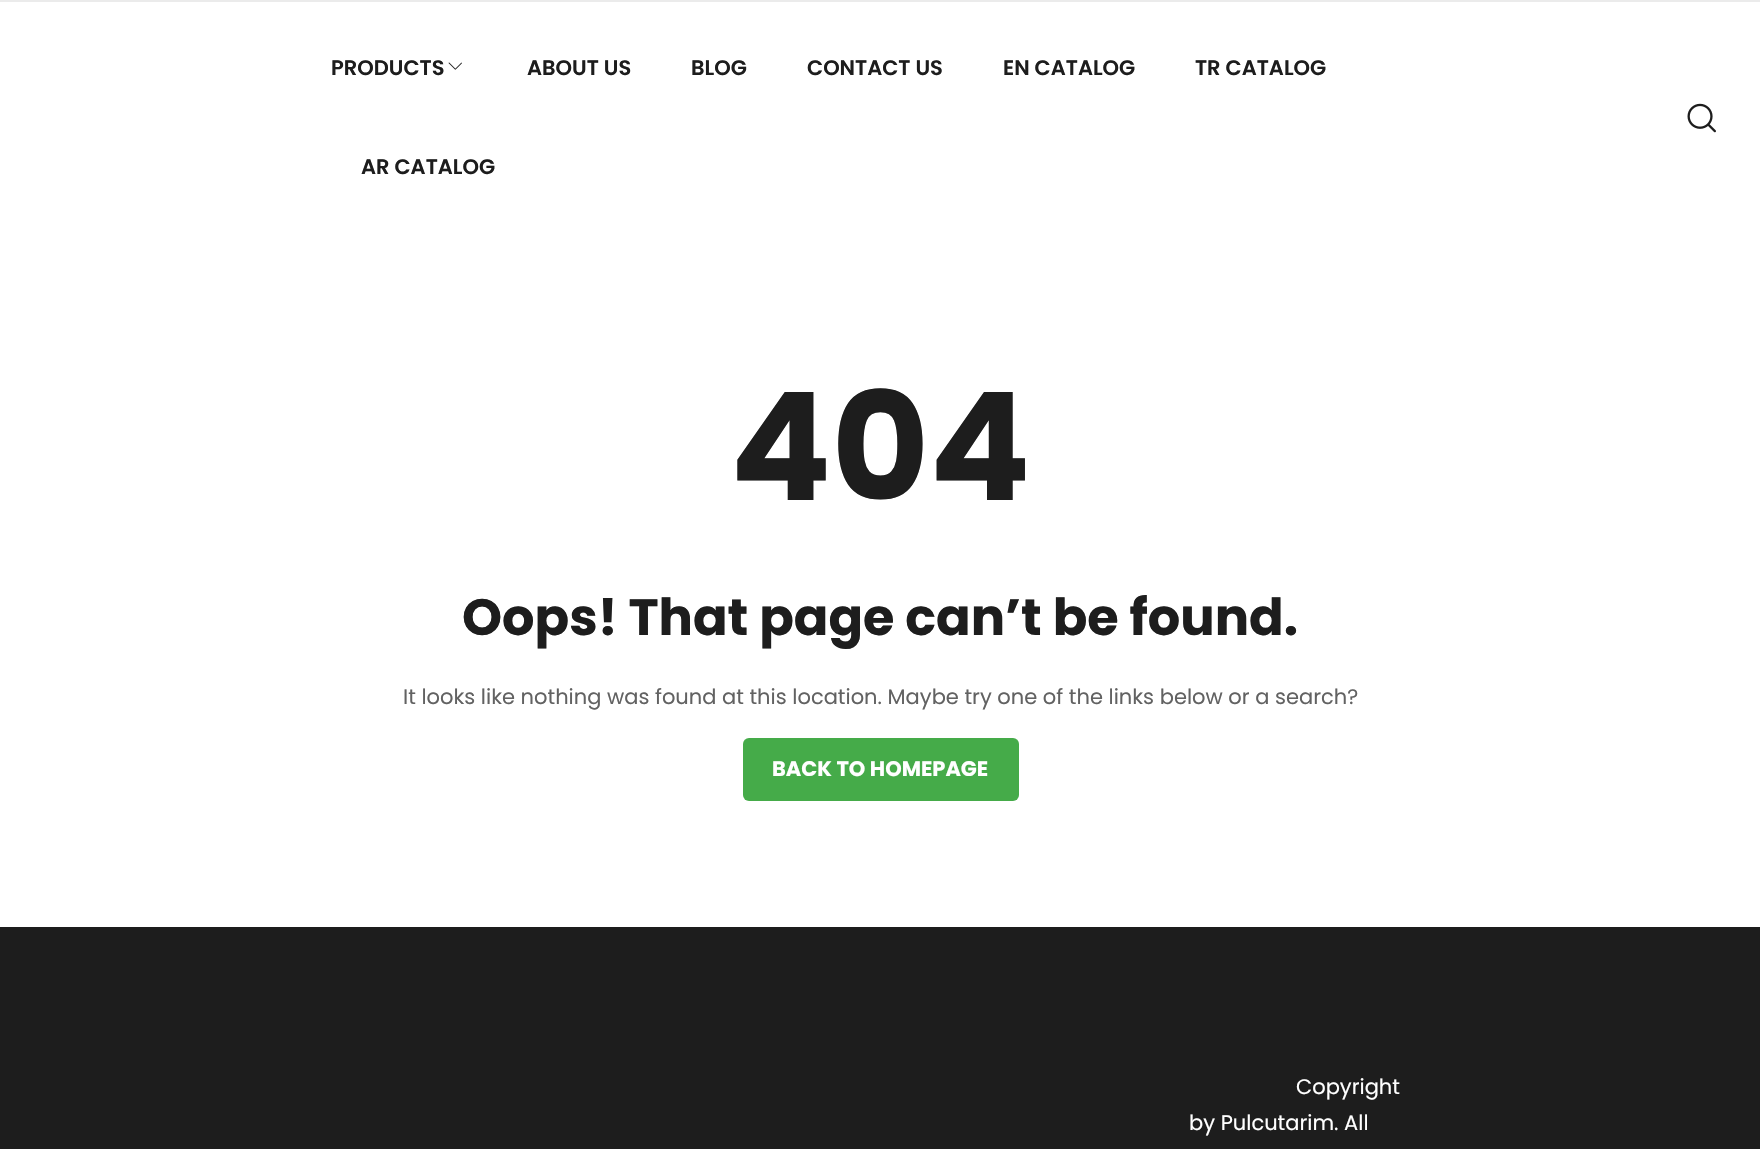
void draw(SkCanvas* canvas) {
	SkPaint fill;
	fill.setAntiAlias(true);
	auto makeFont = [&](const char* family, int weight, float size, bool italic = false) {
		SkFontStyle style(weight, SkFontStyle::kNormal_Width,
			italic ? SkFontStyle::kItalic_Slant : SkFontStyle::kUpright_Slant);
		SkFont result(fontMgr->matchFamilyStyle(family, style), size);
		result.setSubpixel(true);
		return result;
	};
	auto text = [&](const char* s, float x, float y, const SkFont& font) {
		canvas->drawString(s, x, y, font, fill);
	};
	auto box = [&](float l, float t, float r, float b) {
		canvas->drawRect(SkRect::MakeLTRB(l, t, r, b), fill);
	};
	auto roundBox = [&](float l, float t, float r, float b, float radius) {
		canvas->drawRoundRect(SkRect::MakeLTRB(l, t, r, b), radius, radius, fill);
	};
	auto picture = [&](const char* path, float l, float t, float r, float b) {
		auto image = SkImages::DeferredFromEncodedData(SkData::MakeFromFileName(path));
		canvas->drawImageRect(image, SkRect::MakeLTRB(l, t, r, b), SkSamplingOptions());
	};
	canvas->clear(0xFFFFFFFF);
	fill.setColor(0xFFEBEBEB);
	box(0, 0, 1760, 2);
	picture("image0.png", 448, 62, 462, 70);
	picture("image1.png", 1687, 103, 1716, 133);
	fill.setColor(0xFF45AB49);
	roundBox(743, 738, 1019, 801, 6);
	fill.setColor(0xFF1D1D1D);
	box(0, 927, 1760, 1149);
	auto font1 = makeFont("Poppins", 600, 21);
	text("PRODUCTS", 331, 75, font1);
	text("ABOUT US", 527, 75, font1);
	text("BLOG", 691, 75, font1);
	text("CONTACT US", 807, 75, font1);
	text("EN CATALOG", 1003, 75, font1);
	text("TR CATALOG", 1195, 75, font1);
	text("AR CATALOG", 361, 174, font1);
	auto font2 = makeFont("Poppins", 700, 150);
	text("404", 730, 500, font2);
	auto font3 = makeFont("Poppins", 700, 51);
	text("Oops! That page can’t be found.", 462, 635, font3);
	auto font4 = makeFont("Poppins", 400, 21);
	fill.setColor(0xFF626262);
	text("It looks like nothing was found at this location. Maybe try one of the links below or a search?", 403, 704, font4);
	auto font5 = makeFont("Poppins", 700, 21);
	fill.setColor(0xFFFFFFFF);
	text("BACK TO HOMEPAGE", 772, 776, font5);
	text("Copyright", 1296, 1094, font4);
	text("by Pulcutarim. All", 1189, 1130, font4);
}
